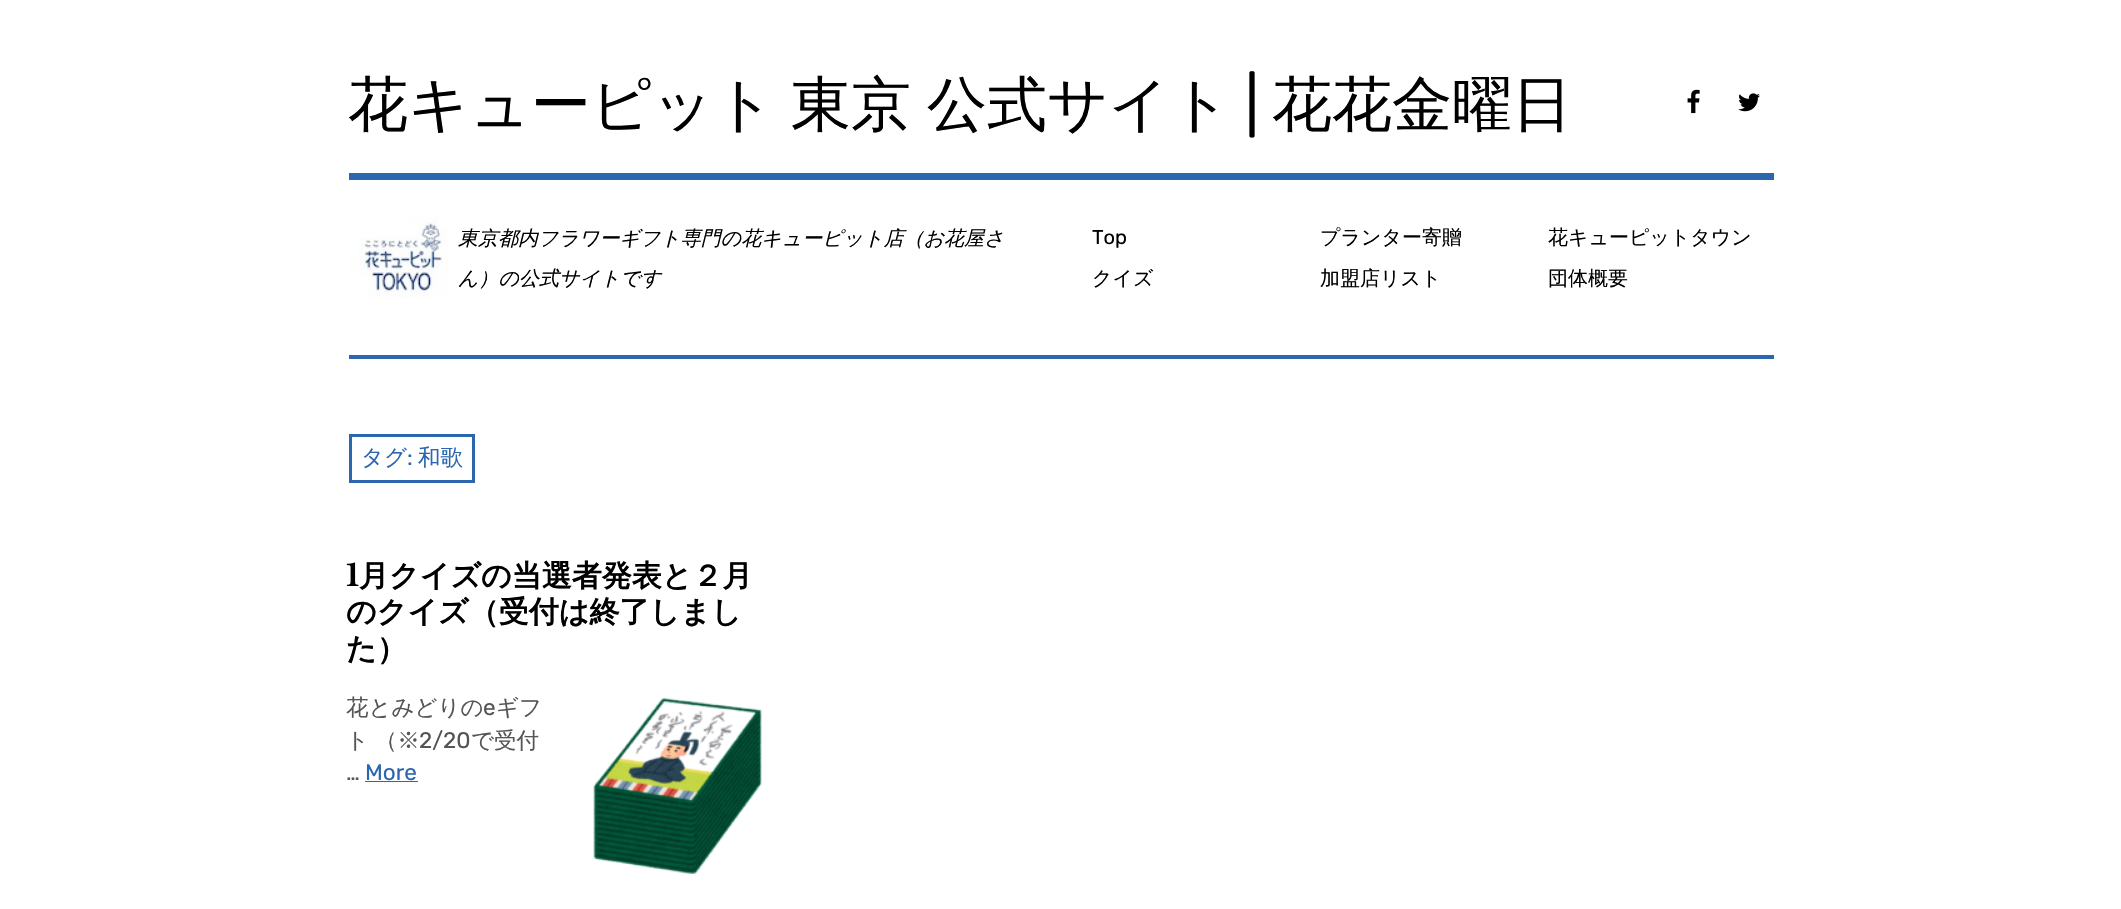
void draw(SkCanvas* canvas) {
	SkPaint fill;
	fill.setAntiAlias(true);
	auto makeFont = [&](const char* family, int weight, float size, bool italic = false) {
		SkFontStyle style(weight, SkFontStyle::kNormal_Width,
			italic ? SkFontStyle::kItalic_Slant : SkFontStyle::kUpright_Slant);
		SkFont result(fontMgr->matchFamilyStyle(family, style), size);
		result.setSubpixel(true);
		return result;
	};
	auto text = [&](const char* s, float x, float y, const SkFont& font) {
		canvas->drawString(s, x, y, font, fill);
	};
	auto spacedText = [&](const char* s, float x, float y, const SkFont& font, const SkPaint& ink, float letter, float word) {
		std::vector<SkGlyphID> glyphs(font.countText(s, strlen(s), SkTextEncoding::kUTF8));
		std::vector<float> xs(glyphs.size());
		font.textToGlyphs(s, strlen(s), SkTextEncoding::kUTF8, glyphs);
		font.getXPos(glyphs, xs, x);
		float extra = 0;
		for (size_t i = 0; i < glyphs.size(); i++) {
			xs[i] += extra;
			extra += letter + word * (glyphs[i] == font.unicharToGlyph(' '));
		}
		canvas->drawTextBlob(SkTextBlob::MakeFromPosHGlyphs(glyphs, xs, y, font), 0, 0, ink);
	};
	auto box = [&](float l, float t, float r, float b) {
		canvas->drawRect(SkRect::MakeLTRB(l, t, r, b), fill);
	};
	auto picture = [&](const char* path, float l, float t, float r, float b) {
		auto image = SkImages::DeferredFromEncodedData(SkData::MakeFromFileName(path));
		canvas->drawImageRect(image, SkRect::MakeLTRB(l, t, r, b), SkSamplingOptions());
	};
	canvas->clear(0xFFFFFFFF);
	fill.setColor(0xFF2C66AE);
	box(349, 173, 1774, 180);
	picture("image0.png", 1687, 89, 1700, 114);
	picture("image1.png", 1738, 93, 1760, 112);
	picture("image2.png", 349, 217, 449, 298);
	box(349, 355, 1774, 359);
	fill.setStyle(SkPaint::kStroke_Style);
	fill.setStrokeWidth(3);
	canvas->drawRect(SkRect::MakeLTRB(350.5f, 435.5f, 473.5f, 481.5f), fill);
	fill.setStyle(SkPaint::kFill_Style);
	box(365, 781, 418, 782);
	picture("image3.png", 593, 697, 762, 874);
	auto font1 = makeFont("WenQuanYi Zen Hei", 500, 60);
	fill.setColor(0xFF000000);
	spacedText("花キューピット 東京 公式サイト", 348, 125, font1, fill, 0, -2);
	auto font2 = makeFont("Rubik", 400, 60);
	text("|", 1245, 125, font2);
	text("花花金曜日", 1272, 125, font1);
	auto font3 = makeFont("WenQuanYi Zen Hei", 500, 20, true);
	text("東京都内フラワーギフト専門の花キューピット店（お花屋さ", 458, 245, font3);
	text("ん）の公式サイトです", 458, 285, font3);
	auto font4 = makeFont("Rubik", 400, 20);
	text("Top", 1092, 244, font4);
	auto font5 = makeFont("WenQuanYi Zen Hei", 500, 20);
	text("クイズ", 1092, 285, font5);
	text("プランター寄贈", 1320, 244, font5);
	text("加盟店リスト", 1320, 285, font5);
	text("花キューピットタウン", 1548, 244, font5);
	text("団体概要", 1548, 285, font5);
	auto font6 = makeFont("WenQuanYi Zen Hei", 500, 22.5f);
	fill.setColor(0xFF2C66AE);
	text("タグ", 361, 465, font6);
	auto font7 = makeFont("Rubik", 400, 22.5f);
	text(":", 407, 465, font7);
	text("和歌", 418, 465, font6);
	auto font8 = makeFont("Libre Baskerville", 700, 30);
	fill.setColor(0xFF000000);
	text("1", 346, 586, font8);
	auto font9 = makeFont("WenQuanYi Zen Hei", 700, 30);
	text("月クイズの当選者発表と２月", 359, 586, font9);
	text("のクイズ（受付は終了しまし", 346, 622, font9);
	text("た）", 346, 659, font9);
	fill.setColor(0xFF555555);
	text("花とみどりの", 346, 715, font6);
	text("e", 483, 715, font7);
	text("ギフ", 496, 715, font6);
	spacedText("ト （※", 346, 748, font6, fill, 0, -1);
	text("2/20", 419, 748, font7);
	text("で受付", 471, 748, font6);
	text("…", 346, 780, font7);
	fill.setColor(0xFF2C66AE);
	text("More", 365, 780, font7);
}
